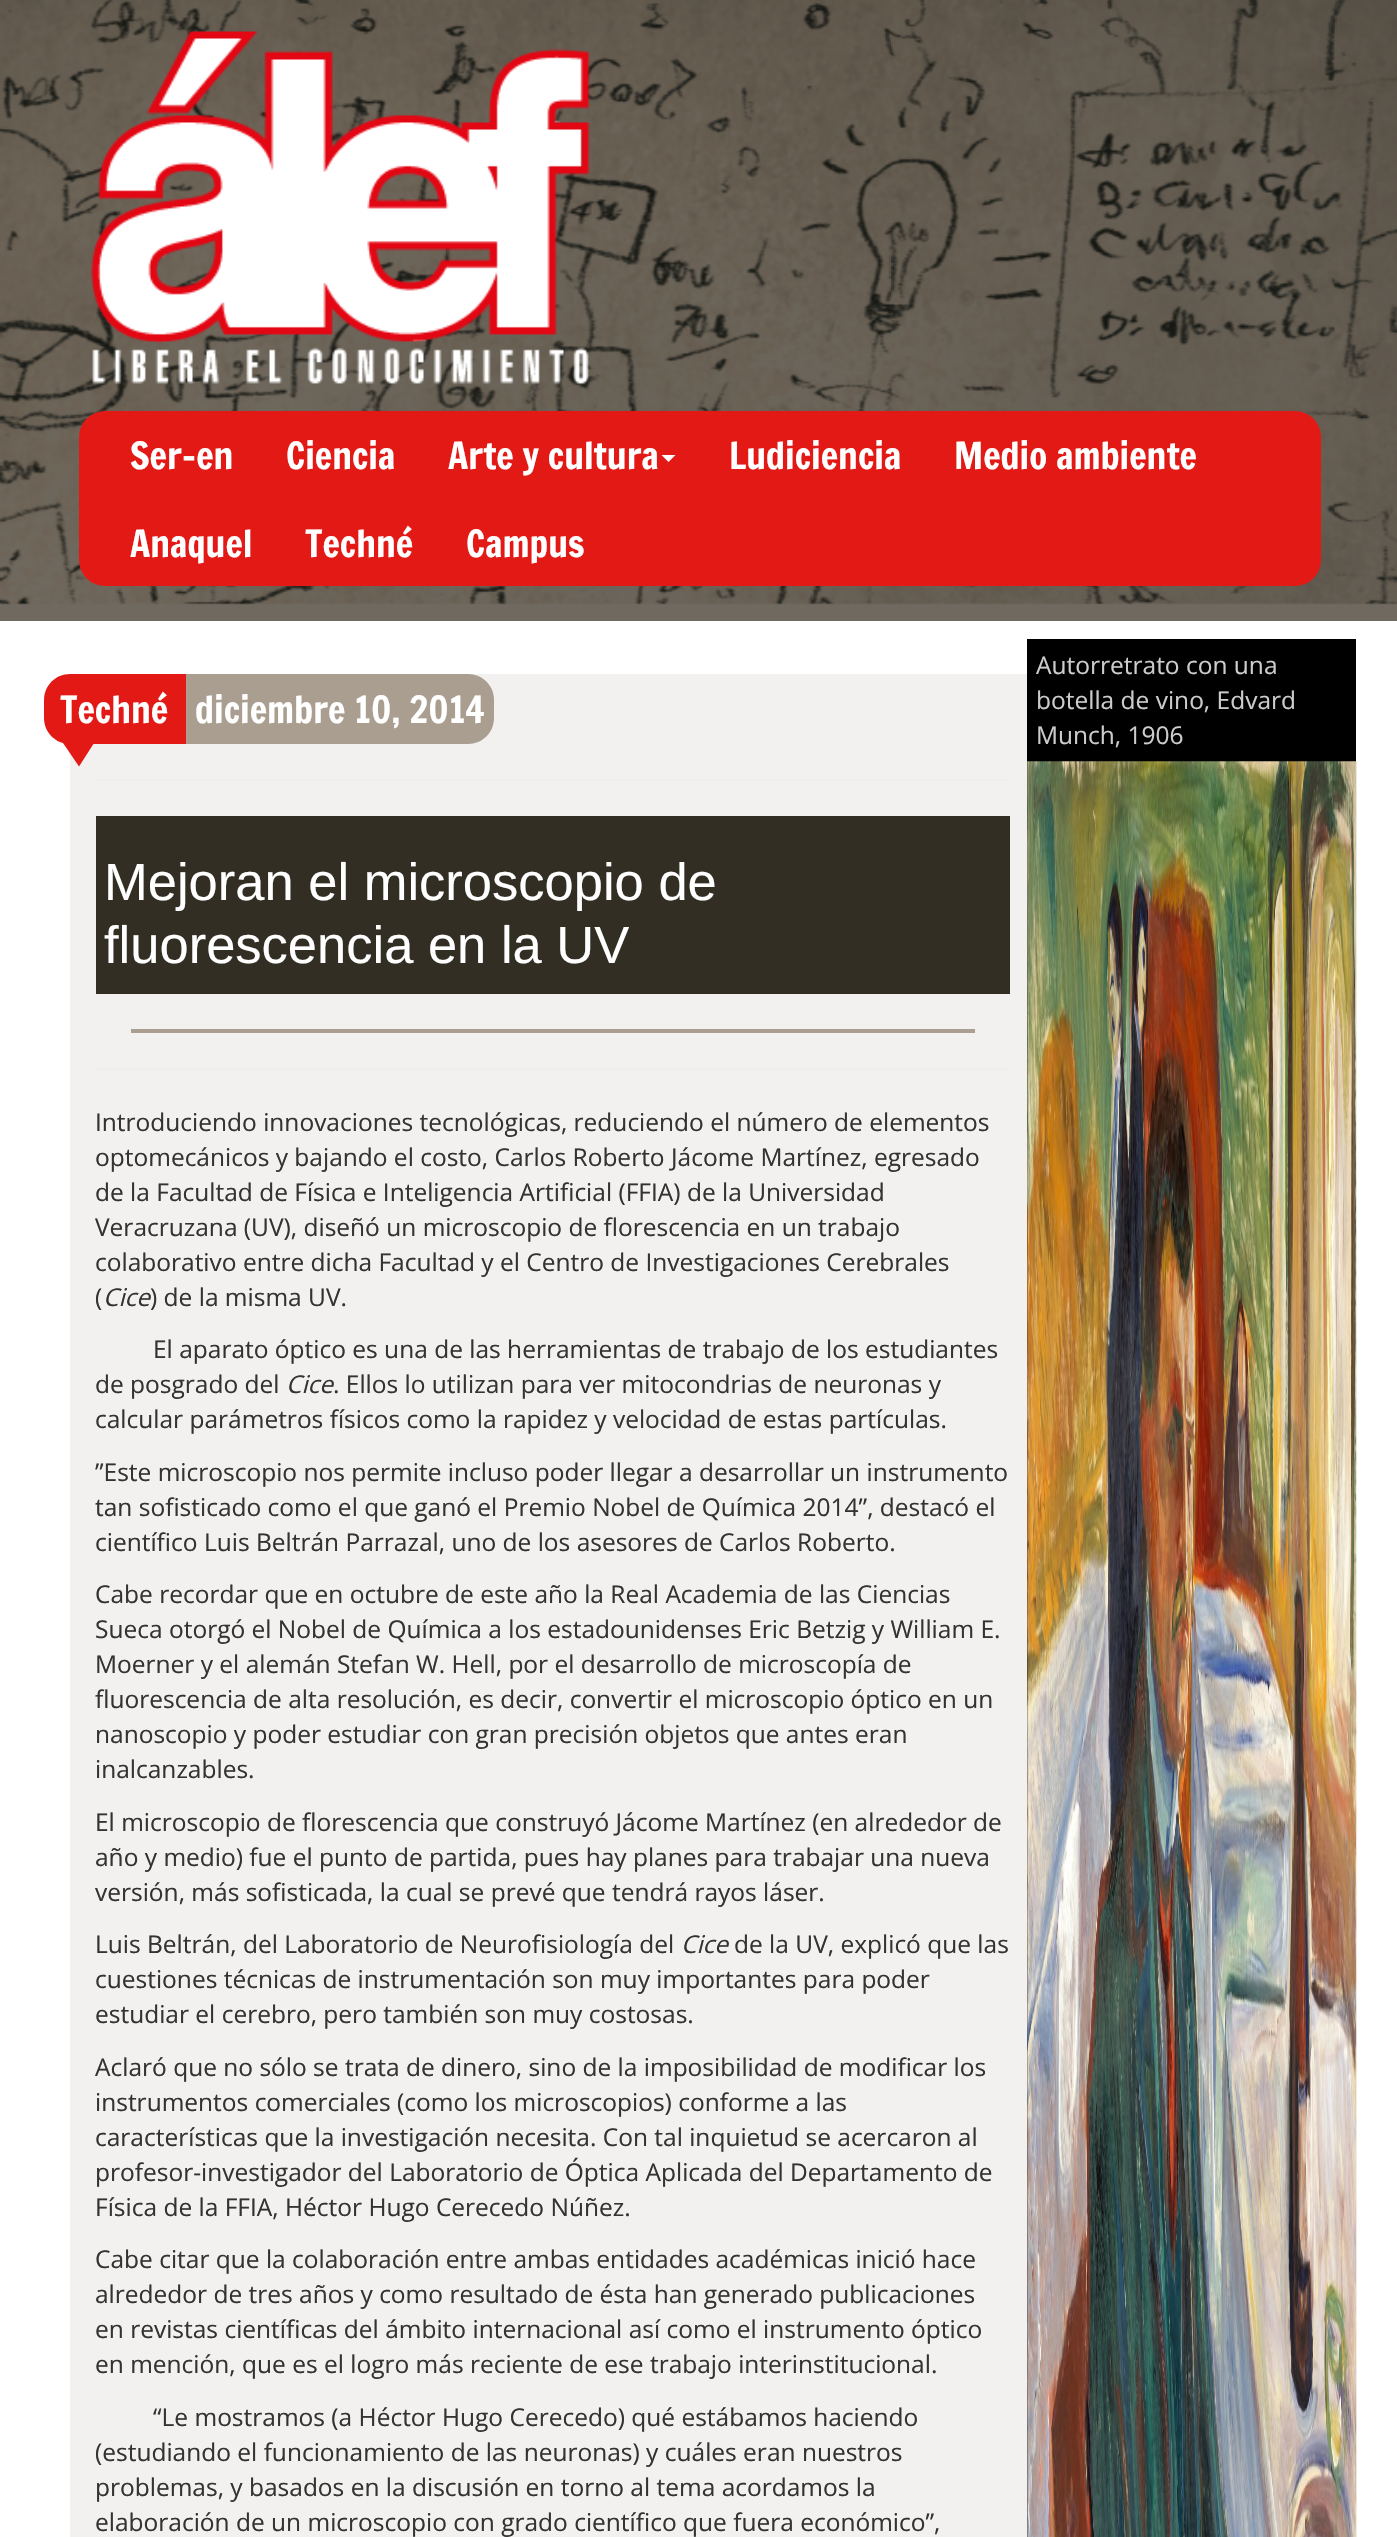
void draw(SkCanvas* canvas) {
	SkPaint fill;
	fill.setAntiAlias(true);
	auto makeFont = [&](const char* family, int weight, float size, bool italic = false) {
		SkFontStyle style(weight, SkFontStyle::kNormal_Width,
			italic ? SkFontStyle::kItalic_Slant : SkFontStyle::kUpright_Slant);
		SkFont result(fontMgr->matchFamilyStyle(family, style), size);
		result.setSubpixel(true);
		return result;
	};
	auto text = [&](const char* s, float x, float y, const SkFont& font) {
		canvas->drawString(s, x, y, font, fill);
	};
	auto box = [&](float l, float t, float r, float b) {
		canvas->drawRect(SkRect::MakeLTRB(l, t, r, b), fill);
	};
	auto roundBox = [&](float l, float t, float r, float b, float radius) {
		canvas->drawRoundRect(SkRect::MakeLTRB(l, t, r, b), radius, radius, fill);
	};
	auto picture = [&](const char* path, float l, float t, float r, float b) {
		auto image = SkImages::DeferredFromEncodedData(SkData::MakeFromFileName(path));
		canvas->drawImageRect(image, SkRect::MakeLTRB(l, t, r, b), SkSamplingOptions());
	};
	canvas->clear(0xFFFFFFFF);
	fill.setColor(0xFF6F695F);
	box(0, 603, 1397, 621);
	picture("image0.png", 0, 0, 1397, 605);
	picture("image1.png", 90, 31, 590, 384);
	fill.setColor(0xFFE31916);
	roundBox(79, 411, 1321, 586, 26);
	fill.setColor(0xFFFFFFFF);
	canvas->drawPath(SkPathBuilder().moveTo(661.5f, 455).lineTo(675.5f, 455).lineTo(668.5f, 462).close().detach(), fill);
	fill.setColor(0xFFF3F1F0);
	box(70, 674, 1027, 2537);
	fill.setColor(0xFFE31916);
	canvas->drawPath(SkPathBuilder().moveTo(70, 674).lineTo(186, 674).lineTo(186, 744).lineTo(70, 744).cubicTo(55.5f, 744, 44, 732.5f, 44, 718).lineTo(44, 700).cubicTo(44, 685.5f, 55.5f, 674, 70, 674).close().detach(), fill);
	canvas->drawPath(SkPathBuilder().moveTo(61, 740).lineTo(96, 740).lineTo(79, 766.5f).close().detach(), fill);
	fill.setColor(0xFFA99E90);
	canvas->drawPath(SkPathBuilder().moveTo(186, 674).lineTo(468, 674).cubicTo(482.5f, 674, 494, 685.5f, 494, 700).lineTo(494, 718).cubicTo(494, 732.5f, 482.5f, 744, 468, 744).lineTo(186, 744).close().detach(), fill);
	fill.setColor(0xFFEEEEEE);
	box(96, 779, 1010, 781);
	fill.setColor(0xFF322E24);
	box(96, 816, 1010, 994);
	fill.setColor(0xFFA99E90);
	box(131, 1029, 975, 1033);
	fill.setColor(0xFFEEEEEE);
	box(96, 1068, 1010, 1070);
	fill.setColor(0xFF000000);
	box(1027, 639, 1356, 2537);
	picture("image2.png", 1027, 761, 1357, 2537);
	auto font1 = makeFont("Francois One", 400, 36.75f);
	fill.setColor(0xFFFFFFFF);
	text("Ser-en", 130, 469, font1);
	text("Ciencia", 286, 469, font1);
	text("Arte y cultura", 448, 469, font1);
	text("Ludiciencia", 729, 469, font1);
	text("Medio ambiente", 954, 469, font1);
	text("Anaquel", 130, 557, font1);
	text("Techné", 305, 557, font1);
	text("Campus", 466, 557, font1);
	text("Techné", 60, 723, font1);
	text("diciembre 10, 2014", 195, 723, font1);
	auto font2 = makeFont("Liberation Sans", 400, 52.5f);
	text("Mejoran el microscopio de", 104, 900, font2);
	text("fluorescencia en la UV", 104, 963, font2);
	auto font3 = makeFont("Open Sans", 400, 24.5f);
	fill.setColor(0xFF333333);
	text("Introduciendo innovaciones tecnológicas, reduciendo el número de elementos", 95, 1131, font3);
	text("optomecánicos y bajando el costo, Carlos Roberto Jácome Martínez, egresado", 95, 1166, font3);
	text("de la Facultad de Física e Inteligencia Artificial (FFIA) de la Universidad", 95, 1201, font3);
	text("Veracruzana (UV), diseñó un microscopio de florescencia en un trabajo", 95, 1236, font3);
	text("colaborativo entre dicha Facultad y el Centro de Investigaciones Cerebrales", 95, 1271, font3);
	text("(", 95, 1306, font3);
	auto font4 = makeFont("Open Sans", 400, 24.5f, true);
	text("Cice", 103, 1306, font4);
	text(") de la misma UV.", 150, 1306, font3);
	text("El aparato óptico es una de las herramientas de trabajo de los estudiantes", 153, 1358, font3);
	text("de posgrado del", 95, 1393, font3);
	text("Cice", 286, 1393, font4);
	text(". Ellos lo utilizan para ver mitocondrias de neuronas y", 333, 1393, font3);
	text("calcular parámetros físicos como la rapidez y velocidad de estas partículas.", 95, 1428, font3);
	text("”Este microscopio nos permite incluso poder llegar a desarrollar un instrumento", 95, 1481, font3);
	text("tan sofisticado como el que ganó el Premio Nobel de Química 2014”, destacó el", 95, 1516, font3);
	text("científico Luis Beltrán Parrazal, uno de los asesores de Carlos Roberto.", 95, 1551, font3);
	text("Cabe recordar que en octubre de este año la Real Academia de las Ciencias", 95, 1603, font3);
	text("Sueca otorgó el Nobel de Química a los estadounidenses Eric Betzig y William E.", 95, 1638, font3);
	text("Moerner y el alemán Stefan W. Hell, por el desarrollo de microscopía de", 95, 1673, font3);
	text("fluorescencia de alta resolución, es decir, convertir el microscopio óptico en un", 95, 1708, font3);
	text("nanoscopio y poder estudiar con gran precisión objetos que antes eran", 95, 1743, font3);
	text("inalcanzables.", 95, 1778, font3);
	text("El microscopio de florescencia que construyó Jácome Martínez (en alrededor de", 95, 1831, font3);
	text("año y medio) fue el punto de partida, pues hay planes para trabajar una nueva", 95, 1866, font3);
	text("versión, más sofisticada, la cual se prevé que tendrá rayos láser.", 95, 1901, font3);
	text("Luis Beltrán, del Laboratorio de Neurofisiología del", 95, 1953, font3);
	text("Cice", 681, 1953, font4);
	text("de la UV, explicó que las", 734, 1953, font3);
	text("cuestiones técnicas de instrumentación son muy importantes para poder", 95, 1988, font3);
	text("estudiar el cerebro, pero también son muy costosas.", 95, 2023, font3);
	text("Aclaró que no sólo se trata de dinero, sino de la imposibilidad de modificar los", 95, 2076, font3);
	text("instrumentos comerciales (como los microscopios) conforme a las", 95, 2111, font3);
	text("características que la investigación necesita. Con tal inquietud se acercaron al", 95, 2146, font3);
	text("profesor-investigador del Laboratorio de Óptica Aplicada del Departamento de", 95, 2181, font3);
	text("Física de la FFIA, Héctor Hugo Cerecedo Núñez.", 95, 2216, font3);
	text("Cabe citar que la colaboración entre ambas entidades académicas inició hace", 95, 2268, font3);
	text("alrededor de tres años y como resultado de ésta han generado publicaciones", 95, 2303, font3);
	text("en revistas científicas del ámbito internacional así como el instrumento óptico", 95, 2338, font3);
	text("en mención, que es el logro más reciente de ese trabajo interinstitucional.", 95, 2373, font3);
	text("“Le mostramos (a Héctor Hugo Cerecedo) qué estábamos haciendo", 153, 2426, font3);
	text("(estudiando el funcionamiento de las neuronas) y cuáles eran nuestros", 95, 2461, font3);
	text("problemas, y basados en la discusión en torno al tema acordamos la", 95, 2496, font3);
	text("elaboración de un microscopio con grado científico que fuera económico”,", 95, 2531, font3);
	fill.setColor(0xFFCCCCCC);
	text("Autorretrato con una", 1036, 674, font3);
	text("botella de vino, Edvard", 1036, 709, font3);
	text("Munch, 1906", 1036, 744, font3);
}
